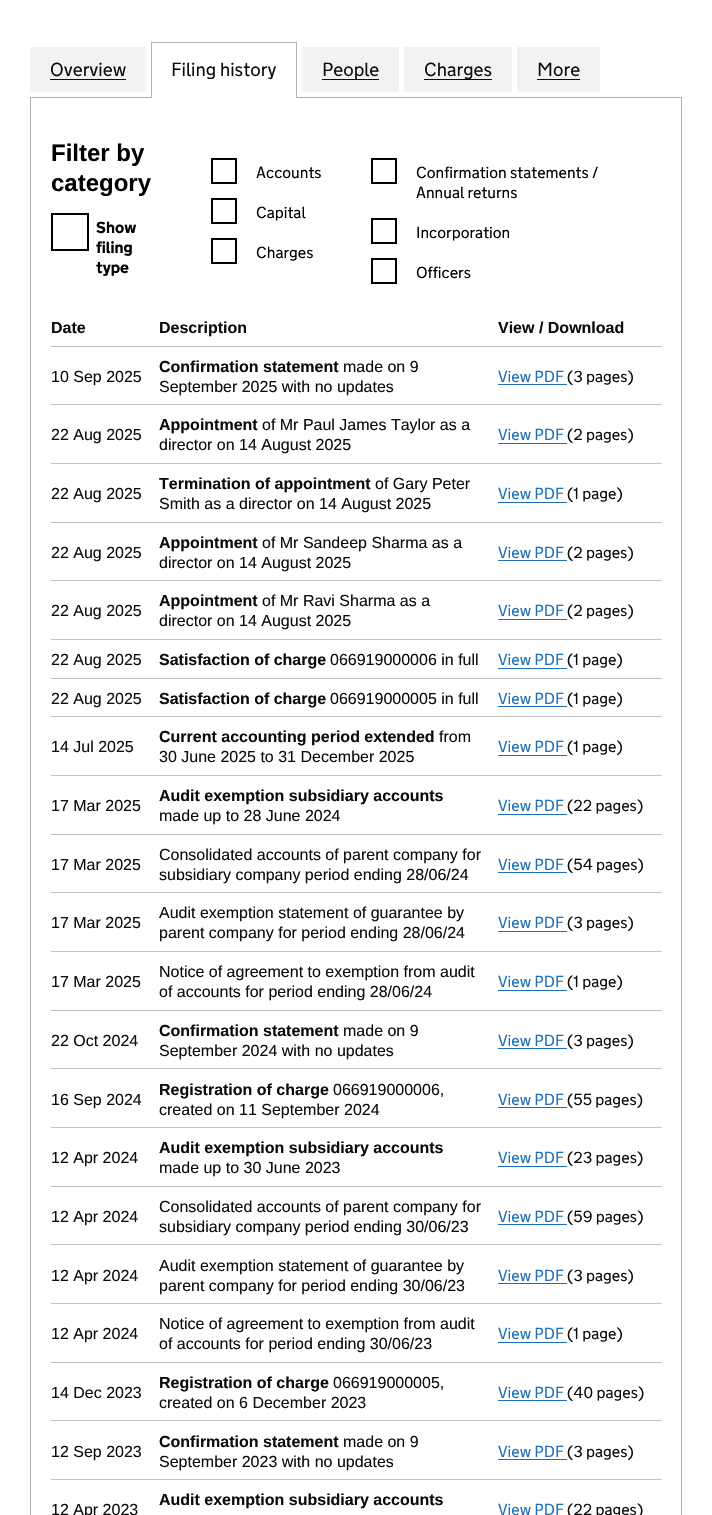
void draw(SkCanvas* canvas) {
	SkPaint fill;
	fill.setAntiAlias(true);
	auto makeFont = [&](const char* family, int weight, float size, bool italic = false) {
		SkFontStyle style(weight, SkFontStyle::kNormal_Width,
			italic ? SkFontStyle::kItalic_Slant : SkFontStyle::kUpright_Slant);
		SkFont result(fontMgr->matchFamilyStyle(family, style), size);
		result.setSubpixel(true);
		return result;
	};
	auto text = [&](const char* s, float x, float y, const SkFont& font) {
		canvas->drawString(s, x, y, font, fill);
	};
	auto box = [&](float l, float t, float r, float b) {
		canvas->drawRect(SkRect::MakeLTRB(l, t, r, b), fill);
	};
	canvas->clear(0xFFFFFFFF);
	fill.setColor(0xFFB1B4B6);
	box(30, 97, 682, 98);
	fill.setColor(0xFFF3F2F1);
	box(30, 47, 146, 92);
	fill.setColor(0xFF0B0C0C);
	box(50, 79, 126, 80);
	fill.setColor(0xFFFFFFFF);
	box(152, 97, 296, 98);
	fill.setColor(0xFFB1B4B6);
	box(151, 42, 297, 43);
	box(296, 42, 297, 98);
	box(151, 42, 152, 98);
	fill.setColor(0xFFF3F2F1);
	box(302, 47, 399, 92);
	fill.setColor(0xFF0B0C0C);
	box(322, 79, 379, 80);
	fill.setColor(0xFFF3F2F1);
	box(404, 47, 512, 92);
	fill.setColor(0xFF0B0C0C);
	box(424, 79, 492, 80);
	fill.setColor(0xFFF3F2F1);
	box(517, 47, 600, 92);
	fill.setColor(0xFF0B0C0C);
	box(537, 79, 580, 80);
	fill.setColor(0xFFB1B4B6);
	box(681, 98, 682, 1515);
	box(30, 98, 31, 1515);
	fill.setStyle(SkPaint::kStroke_Style);
	fill.setStrokeWidth(2);
	fill.setColor(0xFF000000);
	canvas->drawRect(SkRect::MakeLTRB(52, 214, 88, 250), fill);
	canvas->drawRect(SkRect::MakeLTRB(212, 159, 236, 183), fill);
	canvas->drawRect(SkRect::MakeLTRB(212, 199, 236, 223), fill);
	canvas->drawRect(SkRect::MakeLTRB(212, 239, 236, 263), fill);
	canvas->drawRect(SkRect::MakeLTRB(372, 159, 396, 183), fill);
	canvas->drawRect(SkRect::MakeLTRB(372, 219, 396, 243), fill);
	canvas->drawRect(SkRect::MakeLTRB(372, 259, 396, 283), fill);
	fill.setStyle(SkPaint::kFill_Style);
	fill.setColor(0xFFBFC1C3);
	box(51, 346, 662, 347);
	box(51, 404, 662, 405);
	fill.setColor(0xFF1D70B8);
	box(498, 384, 567, 385);
	fill.setColor(0xFFBFC1C3);
	box(51, 463, 662, 464);
	fill.setColor(0xFF1D70B8);
	box(498, 443, 567, 444);
	fill.setColor(0xFFBFC1C3);
	box(51, 522, 662, 523);
	fill.setColor(0xFF1D70B8);
	box(498, 502, 567, 503);
	fill.setColor(0xFFBFC1C3);
	box(51, 580, 662, 581);
	fill.setColor(0xFF1D70B8);
	box(498, 560, 567, 561);
	fill.setColor(0xFFBFC1C3);
	box(51, 639, 662, 640);
	fill.setColor(0xFF1D70B8);
	box(498, 619, 567, 620);
	fill.setColor(0xFFBFC1C3);
	box(51, 678, 662, 679);
	fill.setColor(0xFF1D70B8);
	box(498, 668, 567, 669);
	fill.setColor(0xFFBFC1C3);
	box(51, 716, 662, 717);
	fill.setColor(0xFF1D70B8);
	box(498, 706, 567, 707);
	fill.setColor(0xFFBFC1C3);
	box(51, 775, 662, 776);
	fill.setColor(0xFF1D70B8);
	box(498, 755, 567, 756);
	fill.setColor(0xFFBFC1C3);
	box(51, 834, 662, 835);
	fill.setColor(0xFF1D70B8);
	box(498, 814, 567, 815);
	fill.setColor(0xFFBFC1C3);
	box(51, 892, 662, 893);
	fill.setColor(0xFF1D70B8);
	box(498, 872, 567, 873);
	fill.setColor(0xFFBFC1C3);
	box(51, 951, 662, 952);
	fill.setColor(0xFF1D70B8);
	box(498, 931, 567, 932);
	fill.setColor(0xFFBFC1C3);
	box(51, 1010, 662, 1011);
	fill.setColor(0xFF1D70B8);
	box(498, 990, 567, 991);
	fill.setColor(0xFFBFC1C3);
	box(51, 1068, 662, 1069);
	fill.setColor(0xFF1D70B8);
	box(498, 1048, 567, 1049);
	fill.setColor(0xFFBFC1C3);
	box(51, 1127, 662, 1128);
	fill.setColor(0xFF1D70B8);
	box(498, 1107, 567, 1108);
	fill.setColor(0xFFBFC1C3);
	box(51, 1186, 662, 1187);
	fill.setColor(0xFF1D70B8);
	box(498, 1166, 567, 1167);
	fill.setColor(0xFFBFC1C3);
	box(51, 1244, 662, 1245);
	fill.setColor(0xFF1D70B8);
	box(498, 1224, 567, 1225);
	fill.setColor(0xFFBFC1C3);
	box(51, 1303, 662, 1304);
	fill.setColor(0xFF1D70B8);
	box(498, 1283, 567, 1284);
	fill.setColor(0xFFBFC1C3);
	box(51, 1362, 662, 1363);
	fill.setColor(0xFF1D70B8);
	box(498, 1342, 567, 1343);
	fill.setColor(0xFFBFC1C3);
	box(51, 1420, 662, 1421);
	fill.setColor(0xFF1D70B8);
	box(498, 1400, 567, 1401);
	fill.setColor(0xFFBFC1C3);
	box(51, 1479, 662, 1480);
	fill.setColor(0xFF1D70B8);
	box(498, 1459, 567, 1460);
	auto font1 = makeFont("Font", 300, 19);
	fill.setColor(0xFF0B0C0C);
	text("Overview", 50, 76, font1);
	text("Filing history", 171, 76, font1);
	text("People", 322, 76, font1);
	text("Charges", 424, 76, font1);
	text("More", 537, 76, font1);
	auto font2 = makeFont("Liberation Sans", 700, 24);
	fill.setColor(0xFF000000);
	text("Filter by", 51, 161, font2);
	text("category", 51, 191, font2);
	auto font3 = makeFont("Font", 700, 16);
	text("Show", 96, 233, font3);
	text("filing", 96, 253, font3);
	text("type", 96, 273, font3);
	auto font4 = makeFont("Font", 300, 16);
	text("Accounts", 256, 178, font4);
	text("Capital", 256, 218, font4);
	text("Charges", 256, 258, font4);
	text("Confirmation statements /", 416, 178, font4);
	text("Annual returns", 416, 198, font4);
	text("Incorporation", 416, 238, font4);
	text("Officers", 416, 278, font4);
	auto font5 = makeFont("Liberation Sans", 700, 16);
	fill.setColor(0xFF0B0C0C);
	text("Date", 51, 333, font5);
	text("Description", 159, 333, font5);
	text("View / Download", 498, 333, font5);
	auto font6 = makeFont("Liberation Sans", 400, 16);
	text("10 Sep 2025", 51, 382, font6);
	text("Confirmation statement", 159, 372, font5);
	text("made on 9", 343, 372, font6);
	text("September 2025 with no updates", 159, 392, font6);
	fill.setColor(0xFF1D70B8);
	text("View PDF", 498, 382, font4);
	fill.setColor(0xFF0B0C0C);
	text("(3 pages)", 567, 382, font4);
	text("22 Aug 2025", 51, 440, font6);
	text("Appointment", 159, 430, font5);
	text("of Mr Paul James Taylor as a", 262, 430, font6);
	text("director on 14 August 2025", 159, 450, font6);
	fill.setColor(0xFF1D70B8);
	text("View PDF", 498, 440, font4);
	fill.setColor(0xFF0B0C0C);
	text("(2 pages)", 567, 440, font4);
	text("22 Aug 2025", 51, 499, font6);
	text("Termination of appointment", 159, 489, font5);
	text("of Gary Peter", 375, 489, font6);
	text("Smith as a director on 14 August 2025", 159, 509, font6);
	fill.setColor(0xFF1D70B8);
	text("View PDF", 498, 499, font4);
	fill.setColor(0xFF0B0C0C);
	text("(1 page)", 567, 499, font4);
	text("22 Aug 2025", 51, 558, font6);
	text("Appointment", 159, 548, font5);
	text("of Mr Sandeep Sharma as a", 262, 548, font6);
	text("director on 14 August 2025", 159, 568, font6);
	fill.setColor(0xFF1D70B8);
	text("View PDF", 498, 558, font4);
	fill.setColor(0xFF0B0C0C);
	text("(2 pages)", 567, 558, font4);
	text("22 Aug 2025", 51, 616, font6);
	text("Appointment", 159, 606, font5);
	text("of Mr Ravi Sharma as a", 262, 606, font6);
	text("director on 14 August 2025", 159, 626, font6);
	fill.setColor(0xFF1D70B8);
	text("View PDF", 498, 616, font4);
	fill.setColor(0xFF0B0C0C);
	text("(2 pages)", 567, 616, font4);
	text("22 Aug 2025", 51, 665, font6);
	text("Satisfaction of charge", 159, 665, font5);
	text("066919000006 in full", 330, 665, font6);
	fill.setColor(0xFF1D70B8);
	text("View PDF", 498, 665, font4);
	fill.setColor(0xFF0B0C0C);
	text("(1 page)", 567, 665, font4);
	text("22 Aug 2025", 51, 704, font6);
	text("Satisfaction of charge", 159, 704, font5);
	text("066919000005 in full", 330, 704, font6);
	fill.setColor(0xFF1D70B8);
	text("View PDF", 498, 704, font4);
	fill.setColor(0xFF0B0C0C);
	text("(1 page)", 567, 704, font4);
	text("14 Jul 2025", 51, 752, font6);
	text("Current accounting period extended", 159, 742, font5);
	text("from", 439, 742, font6);
	text("30 June 2025 to 31 December 2025", 159, 762, font6);
	fill.setColor(0xFF1D70B8);
	text("View PDF", 498, 752, font4);
	fill.setColor(0xFF0B0C0C);
	text("(1 page)", 567, 752, font4);
	text("17 Mar 2025", 51, 811, font6);
	text("Audit exemption subsidiary accounts", 159, 801, font5);
	text("made up to 28 June 2024", 159, 821, font6);
	fill.setColor(0xFF1D70B8);
	text("View PDF", 498, 811, font4);
	fill.setColor(0xFF0B0C0C);
	text("(22 pages)", 567, 811, font4);
	text("17 Mar 2025", 51, 870, font6);
	text("Consolidated accounts of parent company for", 159, 860, font6);
	text("subsidiary company period ending 28/06/24", 159, 880, font6);
	fill.setColor(0xFF1D70B8);
	text("View PDF", 498, 870, font4);
	fill.setColor(0xFF0B0C0C);
	text("(54 pages)", 567, 870, font4);
	text("17 Mar 2025", 51, 928, font6);
	text("Audit exemption statement of guarantee by", 159, 918, font6);
	text("parent company for period ending 28/06/24", 159, 938, font6);
	fill.setColor(0xFF1D70B8);
	text("View PDF", 498, 928, font4);
	fill.setColor(0xFF0B0C0C);
	text("(3 pages)", 567, 928, font4);
	text("17 Mar 2025", 51, 987, font6);
	text("Notice of agreement to exemption from audit", 159, 977, font6);
	text("of accounts for period ending 28/06/24", 159, 997, font6);
	fill.setColor(0xFF1D70B8);
	text("View PDF", 498, 987, font4);
	fill.setColor(0xFF0B0C0C);
	text("(1 page)", 567, 987, font4);
	text("22 Oct 2024", 51, 1046, font6);
	text("Confirmation statement", 159, 1036, font5);
	text("made on 9", 343, 1036, font6);
	text("September 2024 with no updates", 159, 1056, font6);
	fill.setColor(0xFF1D70B8);
	text("View PDF", 498, 1046, font4);
	fill.setColor(0xFF0B0C0C);
	text("(3 pages)", 567, 1046, font4);
	text("16 Sep 2024", 51, 1105, font6);
	text("Registration of charge", 159, 1095, font5);
	text("066919000006,", 333, 1095, font6);
	text("created on 11 September 2024", 159, 1115, font6);
	fill.setColor(0xFF1D70B8);
	text("View PDF", 498, 1105, font4);
	fill.setColor(0xFF0B0C0C);
	text("(55 pages)", 567, 1105, font4);
	text("12 Apr 2024", 51, 1163, font6);
	text("Audit exemption subsidiary accounts", 159, 1153, font5);
	text("made up to 30 June 2023", 159, 1173, font6);
	fill.setColor(0xFF1D70B8);
	text("View PDF", 498, 1163, font4);
	fill.setColor(0xFF0B0C0C);
	text("(23 pages)", 567, 1163, font4);
	text("12 Apr 2024", 51, 1222, font6);
	text("Consolidated accounts of parent company for", 159, 1212, font6);
	text("subsidiary company period ending 30/06/23", 159, 1232, font6);
	fill.setColor(0xFF1D70B8);
	text("View PDF", 498, 1222, font4);
	fill.setColor(0xFF0B0C0C);
	text("(59 pages)", 567, 1222, font4);
	text("12 Apr 2024", 51, 1281, font6);
	text("Audit exemption statement of guarantee by", 159, 1271, font6);
	text("parent company for period ending 30/06/23", 159, 1291, font6);
	fill.setColor(0xFF1D70B8);
	text("View PDF", 498, 1281, font4);
	fill.setColor(0xFF0B0C0C);
	text("(3 pages)", 567, 1281, font4);
	text("12 Apr 2024", 51, 1339, font6);
	text("Notice of agreement to exemption from audit", 159, 1329, font6);
	text("of accounts for period ending 30/06/23", 159, 1349, font6);
	fill.setColor(0xFF1D70B8);
	text("View PDF", 498, 1339, font4);
	fill.setColor(0xFF0B0C0C);
	text("(1 page)", 567, 1339, font4);
	text("14 Dec 2023", 51, 1398, font6);
	text("Registration of charge", 159, 1388, font5);
	text("066919000005,", 333, 1388, font6);
	text("created on 6 December 2023", 159, 1408, font6);
	fill.setColor(0xFF1D70B8);
	text("View PDF", 498, 1398, font4);
	fill.setColor(0xFF0B0C0C);
	text("(40 pages)", 567, 1398, font4);
	text("12 Sep 2023", 51, 1457, font6);
	text("Confirmation statement", 159, 1447, font5);
	text("made on 9", 343, 1447, font6);
	text("September 2023 with no updates", 159, 1467, font6);
	fill.setColor(0xFF1D70B8);
	text("View PDF", 498, 1457, font4);
	fill.setColor(0xFF0B0C0C);
	text("(3 pages)", 567, 1457, font4);
	text("12 Apr 2023", 51, 1515, font6);
	text("Audit exemption subsidiary accounts", 159, 1505, font5);
	fill.setColor(0xFF1D70B8);
	text("View PDF", 498, 1515, font4);
	fill.setColor(0xFF0B0C0C);
	text("(22 pages)", 567, 1515, font4);
}
